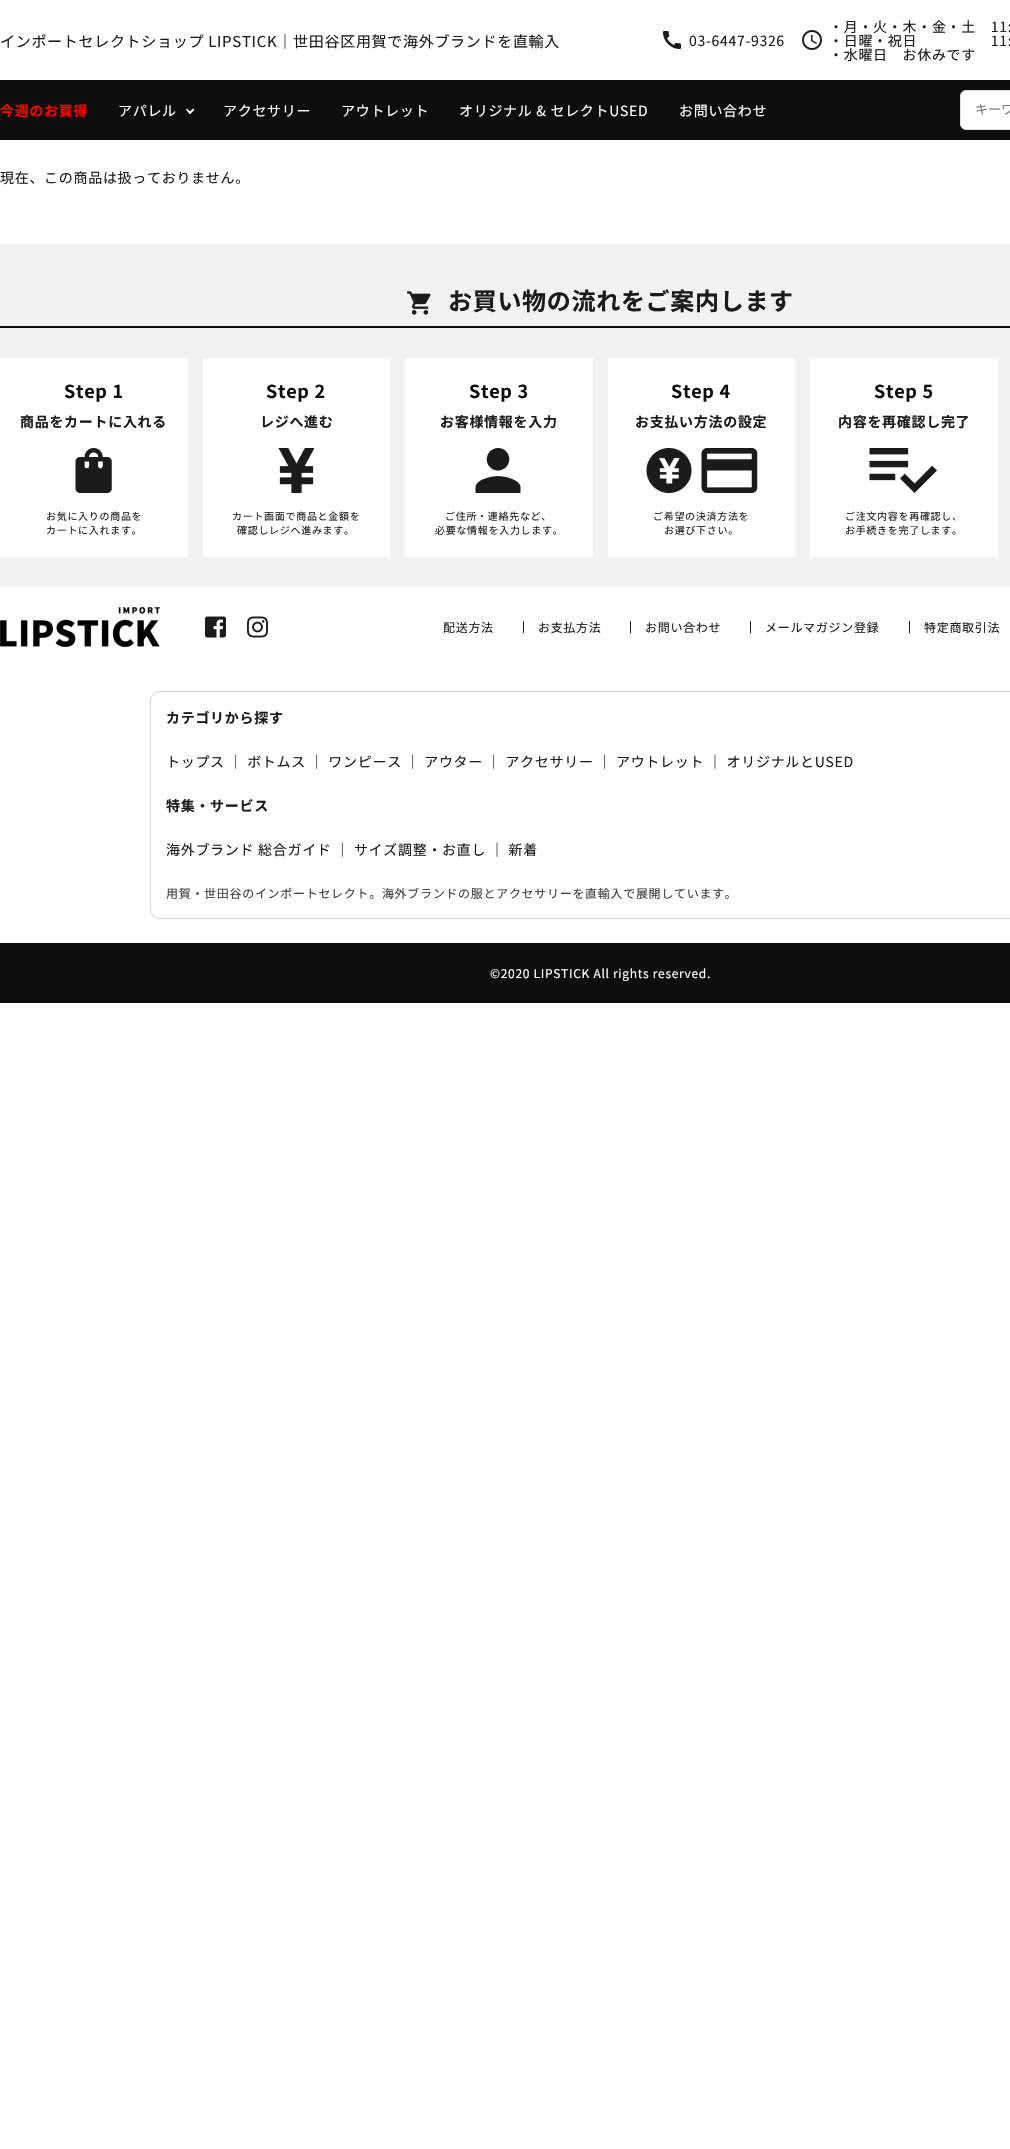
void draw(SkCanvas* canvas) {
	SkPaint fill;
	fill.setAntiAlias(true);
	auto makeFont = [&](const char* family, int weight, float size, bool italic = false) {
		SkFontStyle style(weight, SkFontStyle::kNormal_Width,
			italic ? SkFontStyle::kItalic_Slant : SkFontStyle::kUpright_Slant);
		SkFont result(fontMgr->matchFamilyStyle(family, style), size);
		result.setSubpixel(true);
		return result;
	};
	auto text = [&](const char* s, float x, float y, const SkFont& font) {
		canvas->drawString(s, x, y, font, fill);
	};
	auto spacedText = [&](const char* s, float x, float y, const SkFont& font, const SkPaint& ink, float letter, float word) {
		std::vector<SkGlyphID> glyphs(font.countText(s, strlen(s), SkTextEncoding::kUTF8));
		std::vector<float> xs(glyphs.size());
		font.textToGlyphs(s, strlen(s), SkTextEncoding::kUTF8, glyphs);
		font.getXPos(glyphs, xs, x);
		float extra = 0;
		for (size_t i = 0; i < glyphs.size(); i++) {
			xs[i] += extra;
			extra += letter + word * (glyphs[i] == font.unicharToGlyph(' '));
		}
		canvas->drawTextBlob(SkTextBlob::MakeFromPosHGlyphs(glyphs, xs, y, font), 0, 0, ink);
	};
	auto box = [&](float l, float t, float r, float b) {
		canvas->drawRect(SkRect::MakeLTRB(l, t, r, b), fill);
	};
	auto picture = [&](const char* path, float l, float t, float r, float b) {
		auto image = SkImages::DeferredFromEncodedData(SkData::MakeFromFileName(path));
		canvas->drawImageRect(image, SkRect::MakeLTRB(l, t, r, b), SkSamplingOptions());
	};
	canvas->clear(0xFFFFFFFF);
	picture("image0.png", 663, 31, 681, 49);
	picture("image1.png", 802, 30, 822, 50);
	fill.setColor(0xFF0D0D0D);
	box(0, 80, 1010, 140);
	fill.setColor(0xFFFFFFFF);
	canvas->drawPath(SkPathBuilder().moveTo(194.5f, 110).lineTo(190, 114).lineTo(188.5f, 113).lineTo(193, 108.5f).close().detach(), fill);
	canvas->drawPath(SkPathBuilder().moveTo(191.5f, 113).lineTo(190, 114).lineTo(186, 110).lineTo(187, 108.5f).close().detach(), fill);
	canvas->drawRoundRect(SkRect::MakeLTRB(960.5f, 90.5f, 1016.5f, 129.5f), 5.5f, 5.5f, fill);
	fill.setStyle(SkPaint::kStroke_Style);
	fill.setStrokeWidth(1);
	fill.setColor(0xFFDFDFDF);
	canvas->drawRoundRect(SkRect::MakeLTRB(960.5f, 90.5f, 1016.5f, 129.5f), 5.5f, 5.5f, fill);
	fill.setStyle(SkPaint::kFill_Style);
	fill.setColor(0xFFF2F2F2);
	box(0, 244, 1010, 587);
	fill.setColor(0xFF0D0D0D);
	box(0, 326, 1010, 328);
	picture("image2.png", 407, 291, 431, 315);
	fill.setColor(0xFFFFFFFF);
	box(0, 358, 188, 557);
	picture("image3.png", 75, 448, 112, 493);
	box(203, 358, 390, 557);
	picture("image4.png", 278, 448, 315, 493);
	box(405, 358, 593, 557);
	picture("image5.png", 475, 448, 521, 493);
	box(608, 358, 795, 557);
	picture("image6.png", 646, 448, 758, 493);
	box(810, 358, 998, 557);
	picture("image7.png", 869, 448, 937, 493);
	picture("image8.png", 0, 607, 160, 647);
	picture("image9.png", 205, 616, 226, 638);
	picture("image10.png", 247, 616, 268, 638);
	fill.setColor(0xFF1B1B1B);
	box(523, 621, 524, 633);
	box(630, 621, 631, 633);
	box(750, 621, 751, 633);
	box(909, 621, 910, 633);
	fill.setStyle(SkPaint::kStroke_Style);
	fill.setColor(0xFFD3D3D3);
	canvas->drawRoundRect(SkRect::MakeLTRB(150.5f, 691.5f, 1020.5f, 918.5f), 9.5f, 9.5f, fill);
	fill.setStyle(SkPaint::kFill_Style);
	fill.setColor(0xFF0D0D0D);
	box(0, 943, 1010, 1003);
	auto font1 = makeFont("Noto Sans JP", 400, 15);
	fill.setColor(0xFF1B1B1B);
	spacedText("インポートセレクトショップ LIPSTICK｜世田谷区用賀で海外ブランドを直輸入", 0, 47, font1, fill, 0.7f, 0);
	auto font2 = makeFont("Noto Sans JP", 400, 14);
	spacedText("03-6447-9326", 689, 46, font2, fill, 0.7f, 0);
	spacedText("・月・火・木・金・土　11:", 829, 32, font2, fill, 0.7f, 0);
	spacedText("・日曜・祝日　　　　　11:", 829, 46, font2, fill, 0.7f, 0);
	spacedText("・水曜日　お休みです", 829, 60, font2, fill, 0.7f, 0);
	auto font3 = makeFont("Noto Sans JP", 700, 14);
	fill.setColor(0xFFFF0000);
	spacedText("今週のお買得", 0, 116, font3, fill, 0.7f, 0);
	fill.setColor(0xFFFFFFFF);
	spacedText("アパレル", 118, 116, font2, fill, 0.7f, 0);
	spacedText("アクセサリー", 223, 116, font2, fill, 0.7f, 0);
	spacedText("アウトレット", 341, 116, font2, fill, 0.7f, 0);
	spacedText("オリジナル & セレクトUSED", 459, 116, font2, fill, 0.7f, 0);
	spacedText("お問い合わせ", 679, 116, font2, fill, 0.7f, 0);
	auto font4 = makeFont("Noto Sans JP", 400, 13);
	fill.setColor(0xFF757575);
	text("キーワ", 975, 114, font4);
	fill.setColor(0xFF1B1B1B);
	spacedText("現在、この商品は扱っておりません。", 0, 183, font2, fill, 0.7f, 0);
	auto font5 = makeFont("Noto Sans JP", 700, 24);
	spacedText("お買い物の流れをご案内します", 448, 310, font5, fill, 0.7f, 0);
	auto font6 = makeFont("Noto Sans JP", 700, 18);
	fill.setColor(0xFF0D0D0D);
	spacedText("Step 1", 64, 398, font6, fill, 0.7f, 0);
	fill.setColor(0xFF1B1B1B);
	spacedText("商品をカートに入れる", 20, 427, font3, fill, 0.7f, 0);
	auto font7 = makeFont("Noto Sans JP", 400, 10);
	spacedText("お気に入りの商品を", 46, 520, font7, fill, 0.7f, 0);
	spacedText("カートに入れます。", 46, 534, font7, fill, 0.7f, 0);
	fill.setColor(0xFF0D0D0D);
	spacedText("Step 2", 266, 398, font6, fill, 0.7f, 0);
	fill.setColor(0xFF1B1B1B);
	spacedText("レジへ進む", 260, 427, font3, fill, 0.7f, 0);
	spacedText("カート画面で商品と金額を", 232, 520, font7, fill, 0.7f, 0);
	spacedText("確認しレジへ進みます。", 237, 534, font7, fill, 0.7f, 0);
	fill.setColor(0xFF0D0D0D);
	spacedText("Step 3", 469, 398, font6, fill, 0.7f, 0);
	fill.setColor(0xFF1B1B1B);
	spacedText("お客様情報を入力", 440, 427, font3, fill, 0.7f, 0);
	spacedText("ご住所・連絡先など、", 445, 520, font7, fill, 0.7f, 0);
	spacedText("必要な情報を入力します。", 435, 534, font7, fill, 0.7f, 0);
	fill.setColor(0xFF0D0D0D);
	spacedText("Step 4", 671, 398, font6, fill, 0.7f, 0);
	fill.setColor(0xFF1B1B1B);
	spacedText("お支払い方法の設定", 635, 427, font3, fill, 0.7f, 0);
	spacedText("ご希望の決済方法を", 653, 520, font7, fill, 0.7f, 0);
	spacedText("お選び下さい。", 664, 534, font7, fill, 0.7f, 0);
	fill.setColor(0xFF0D0D0D);
	spacedText("Step 5", 874, 398, font6, fill, 0.7f, 0);
	fill.setColor(0xFF1B1B1B);
	spacedText("内容を再確認し完了", 838, 427, font3, fill, 0.7f, 0);
	spacedText("ご注文内容を再確認し、", 845, 520, font7, fill, 0.7f, 0);
	spacedText("お手続きを完了します。", 845, 534, font7, fill, 0.7f, 0);
	auto font8 = makeFont("Noto Sans JP", 400, 12);
	spacedText("配送方法", 443, 632, font8, fill, 0.7f, 0);
	spacedText("お支払方法", 538, 632, font8, fill, 0.7f, 0);
	spacedText("お問い合わせ", 645, 632, font8, fill, 0.7f, 0);
	spacedText("メールマガジン登録", 765, 632, font8, fill, 0.7f, 0);
	spacedText("特定商取引法", 924, 632, font8, fill, 0.7f, 0);
	spacedText("カテゴリから探す", 166, 723, font3, fill, 0.7f, 0);
	spacedText("トップス ｜ ボトムス ｜ ワンピース ｜ アウター ｜ アクセサリー ｜ アウトレット ｜ オリジナルとUSED", 166, 767, font2, fill, 0.7f, 0);
	spacedText("特集・サービス", 166, 811, font3, fill, 0.7f, 0);
	spacedText("海外ブランド 総合ガイド ｜ サイズ調整・お直し ｜ 新着", 166, 855, font2, fill, 0.7f, 0);
	fill.setColor(0xFF3D3D3D);
	spacedText("用賀・世田谷のインポートセレクト。海外ブランドの服とアクセサリーを直輸入で展開しています。", 166, 898, font8, fill, 0.7f, 0);
	fill.setColor(0xFFFFFFFF);
	spacedText("©2020 LIPSTICK All rights reserved.", 490, 978, font8, fill, 0.7f, 0);
}
